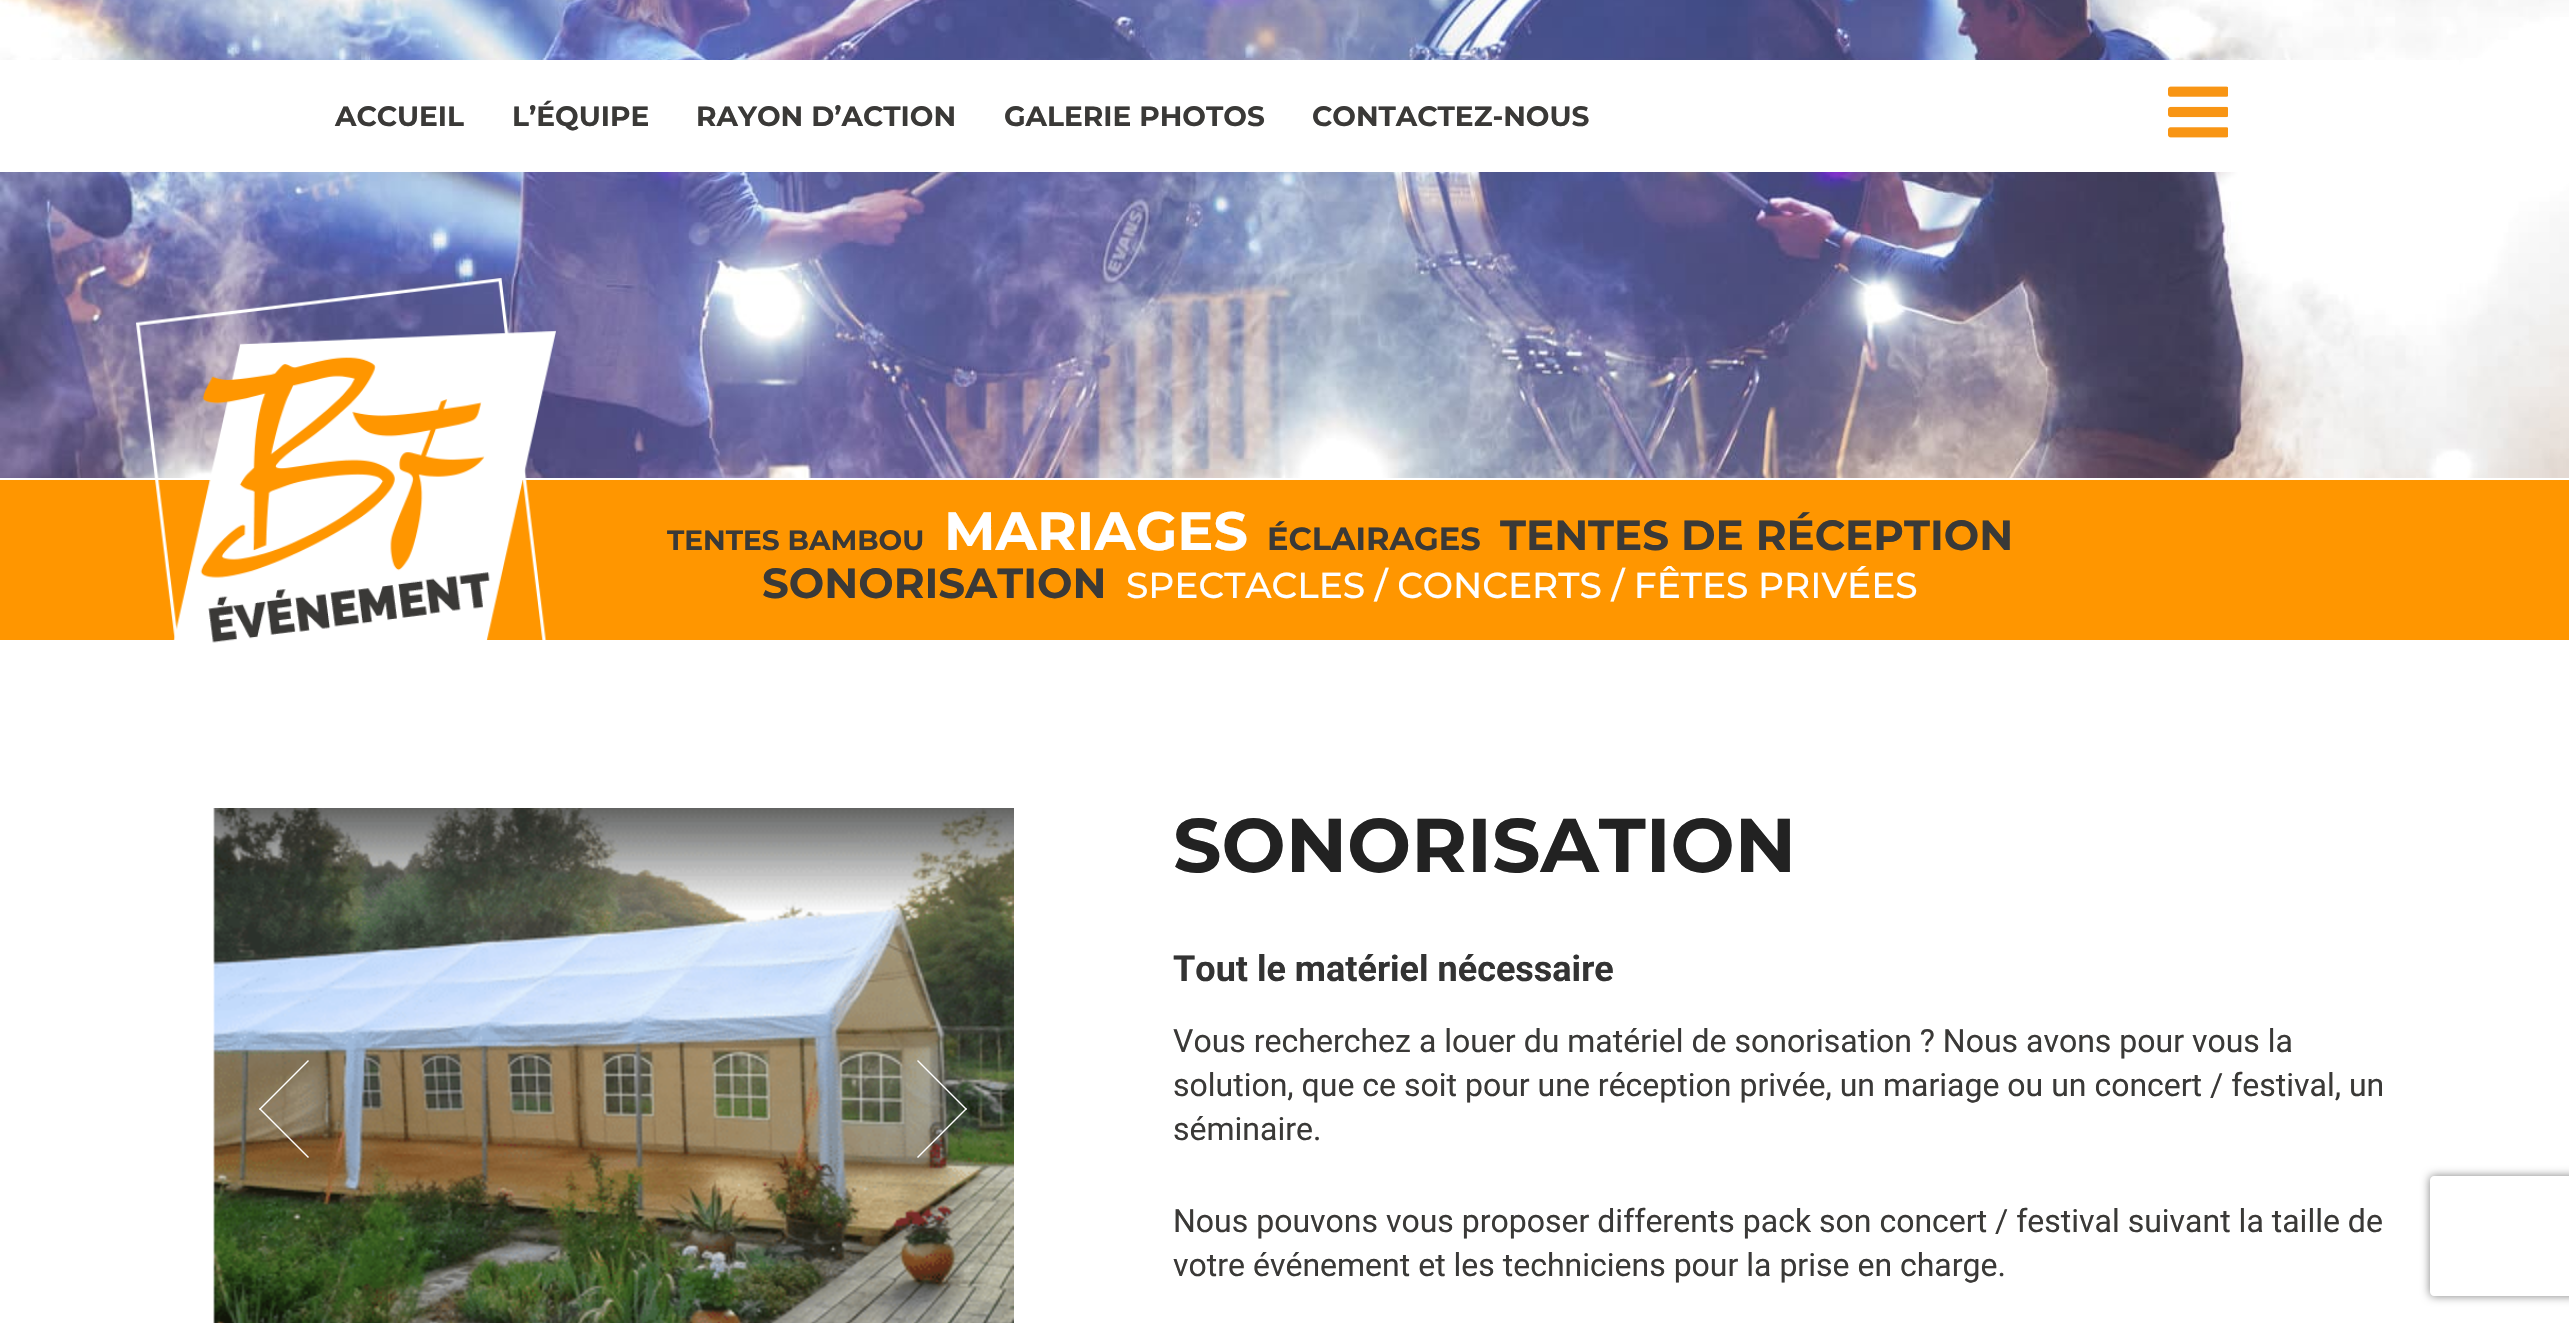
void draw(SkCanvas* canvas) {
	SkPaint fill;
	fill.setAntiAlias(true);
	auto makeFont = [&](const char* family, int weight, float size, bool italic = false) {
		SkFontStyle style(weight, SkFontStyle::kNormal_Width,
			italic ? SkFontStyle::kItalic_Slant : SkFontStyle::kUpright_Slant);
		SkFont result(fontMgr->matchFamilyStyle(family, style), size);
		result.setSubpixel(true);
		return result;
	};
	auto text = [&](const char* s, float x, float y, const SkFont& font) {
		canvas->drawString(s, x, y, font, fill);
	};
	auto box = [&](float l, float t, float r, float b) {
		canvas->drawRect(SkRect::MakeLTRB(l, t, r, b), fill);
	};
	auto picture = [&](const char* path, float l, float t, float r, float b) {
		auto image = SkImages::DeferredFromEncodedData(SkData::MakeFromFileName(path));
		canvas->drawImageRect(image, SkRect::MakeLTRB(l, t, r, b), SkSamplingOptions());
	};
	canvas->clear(0xFFFFFFFF);
	picture("image0.png", 0, 0, 2569, 478);
	fill.setColor(0xFFFFFFFF);
	box(0, 60, 2459, 172);
	picture("image1.png", 2168, 86, 2228, 138);
	fill.setColor(0xFFFF9600);
	box(0, 480, 2569, 640);
	picture("image2.png", 136, 278, 556, 643);
	picture("image3.png", 213, 808, 1014, 1323);
	fill.setColor(0xFFFFFFFF);
	canvas->drawPath(SkPathBuilder().moveTo(259, 1109).lineTo(308, 1060).lineTo(309, 1061).lineTo(260, 1110).close().detach(), fill);
	canvas->drawPath(SkPathBuilder().moveTo(259, 1109).lineTo(260, 1108).lineTo(309, 1157).lineTo(308, 1158).close().detach(), fill);
	canvas->drawPath(SkPathBuilder().moveTo(917, 1061).lineTo(918, 1060).lineTo(967, 1109).lineTo(966, 1110).close().detach(), fill);
	canvas->drawPath(SkPathBuilder().moveTo(917, 1157).lineTo(966, 1108).lineTo(967, 1109).lineTo(918, 1158).close().detach(), fill);
	canvas->save();
	canvas->clipPath(SkPathBuilder(SkPathFillType::kEvenOdd).moveTo(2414, 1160).lineTo(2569, 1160).lineTo(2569, 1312).lineTo(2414, 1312).close().moveTo(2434, 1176).lineTo(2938, 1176).cubicTo(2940, 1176, 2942, 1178, 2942, 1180).lineTo(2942, 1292).cubicTo(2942, 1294, 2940, 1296, 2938, 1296).lineTo(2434, 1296).cubicTo(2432, 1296, 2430, 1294, 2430, 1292).lineTo(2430, 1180).cubicTo(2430, 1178, 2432, 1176, 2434, 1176).close().detach(), true);
	fill.setColor(0xFF808080);
	fill.setMaskFilter(SkMaskFilter::MakeBlur(kNormal_SkBlurStyle, 5));
	canvas->drawRoundRect(SkRect::MakeLTRB(2430, 1176, 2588, 1296), 4, 4, fill);
	fill.setMaskFilter(nullptr);
	canvas->restore();
	auto font1 = makeFont("Montserrat", 700, 28);
	fill.setColor(0xFF3A3937);
	text("ACCUEIL", 335, 126, font1);
	text("L’ÉQUIPE", 512, 126, font1);
	text("RAYON D’ACTION", 696, 126, font1);
	text("GALERIE PHOTOS", 1004, 126, font1);
	text("CONTACTEZ-NOUS", 1312, 126, font1);
	text("TENTES BAMBOU", 667, 550, font1);
	auto font2 = makeFont("Montserrat", 700, 54);
	fill.setColor(0xFFFFFFFF);
	text("MARIAGES", 944, 550, font2);
	auto font3 = makeFont("Montserrat", 700, 32);
	fill.setColor(0xFF3A3937);
	text("ÉCLAIRAGES", 1267, 550, font3);
	auto font4 = makeFont("Montserrat", 700, 42);
	text("TENTES DE RÉCEPTION", 1500, 550, font4);
	text("SONORISATION", 762, 598, font4);
	auto font5 = makeFont("Montserrat", 500, 36);
	fill.setColor(0xFFFFFFFF);
	text("SPECTACLES / CONCERTS / FÊTES PRIVÉES", 1126, 598, font5);
	auto font6 = makeFont("Montserrat", 700, 76);
	fill.setColor(0xFF222222);
	text("SONORISATION", 1173, 872, font6);
	auto font7 = makeFont("Roboto", 700, 36);
	fill.setColor(0xFF333333);
	text("Tout le matériel nécessaire", 1173, 981, font7);
	auto font8 = makeFont("Roboto", 400, 32);
	fill.setColor(0xFF3A3937);
	text("Vous recherchez a louer du matériel de sonorisation ? Nous avons pour vous la", 1173, 1052, font8);
	text("solution, que ce soit pour une réception privée, un mariage ou un concert / festival, un", 1173, 1096, font8);
	text("séminaire.", 1173, 1140, font8);
	text("Nous pouvons vous proposer differents pack son concert / festival suivant la taille de", 1173, 1232, font8);
	text("votre événement et les techniciens pour la prise en charge.", 1173, 1276, font8);
}
